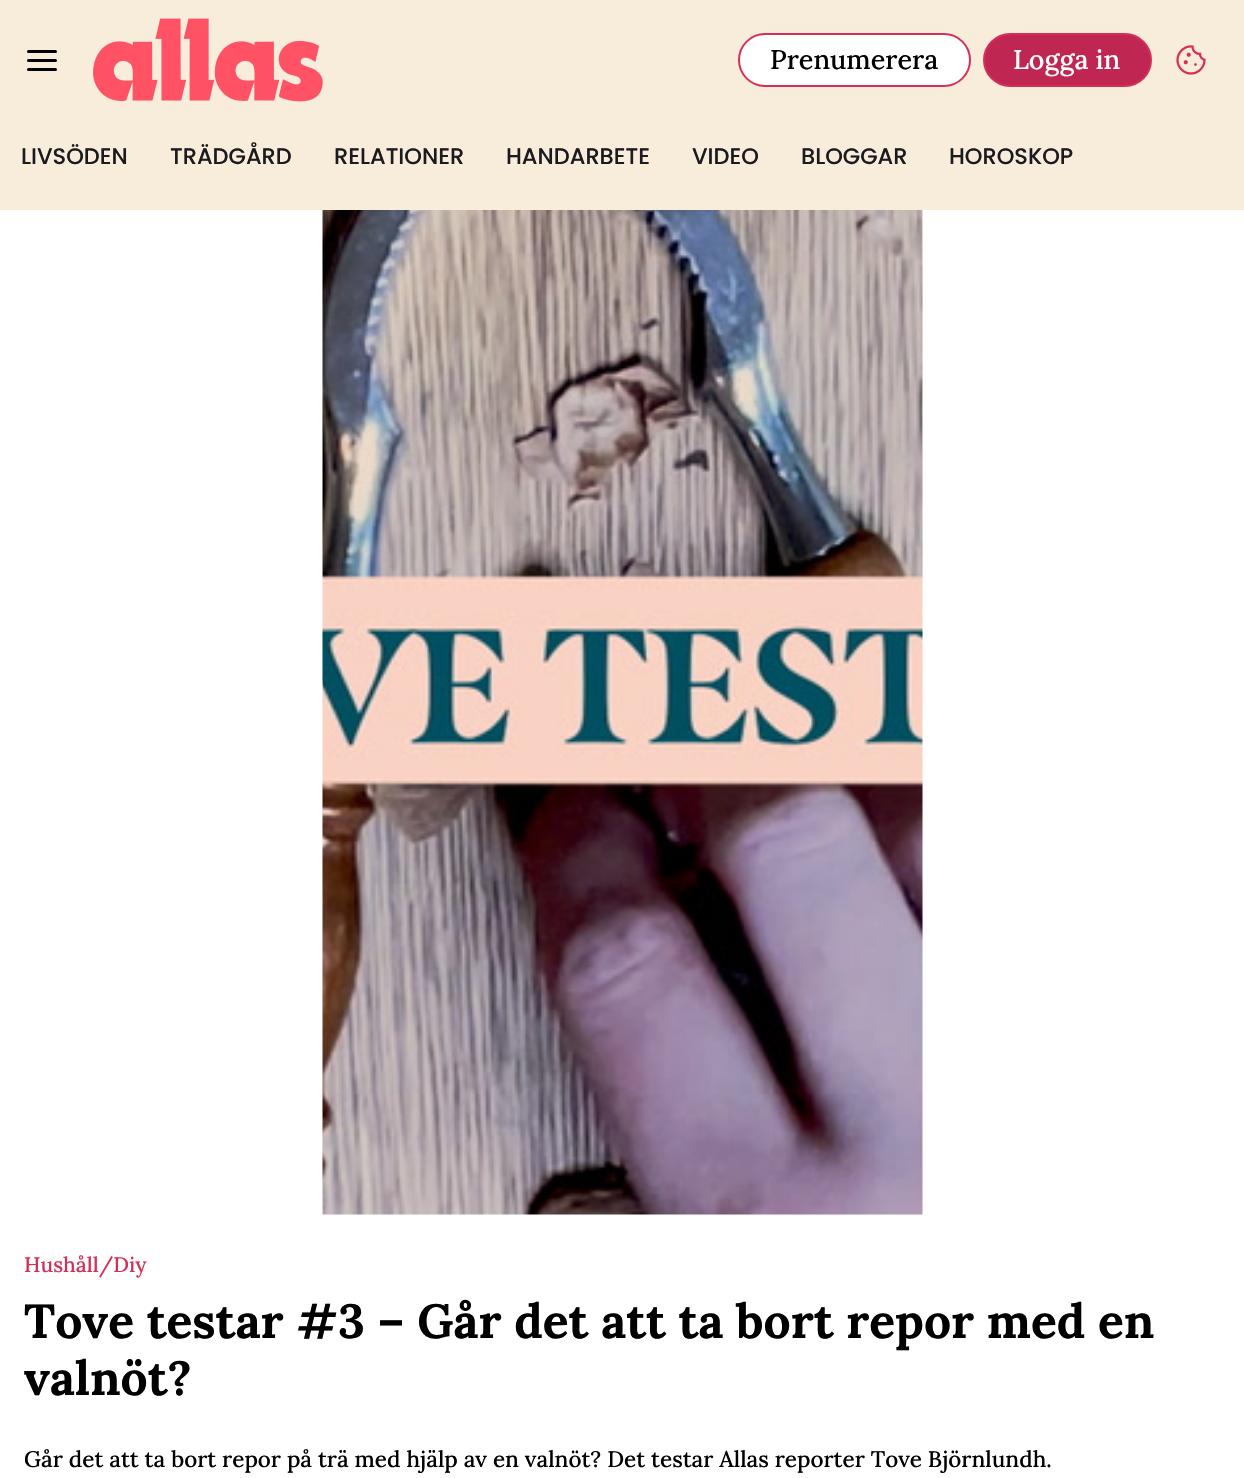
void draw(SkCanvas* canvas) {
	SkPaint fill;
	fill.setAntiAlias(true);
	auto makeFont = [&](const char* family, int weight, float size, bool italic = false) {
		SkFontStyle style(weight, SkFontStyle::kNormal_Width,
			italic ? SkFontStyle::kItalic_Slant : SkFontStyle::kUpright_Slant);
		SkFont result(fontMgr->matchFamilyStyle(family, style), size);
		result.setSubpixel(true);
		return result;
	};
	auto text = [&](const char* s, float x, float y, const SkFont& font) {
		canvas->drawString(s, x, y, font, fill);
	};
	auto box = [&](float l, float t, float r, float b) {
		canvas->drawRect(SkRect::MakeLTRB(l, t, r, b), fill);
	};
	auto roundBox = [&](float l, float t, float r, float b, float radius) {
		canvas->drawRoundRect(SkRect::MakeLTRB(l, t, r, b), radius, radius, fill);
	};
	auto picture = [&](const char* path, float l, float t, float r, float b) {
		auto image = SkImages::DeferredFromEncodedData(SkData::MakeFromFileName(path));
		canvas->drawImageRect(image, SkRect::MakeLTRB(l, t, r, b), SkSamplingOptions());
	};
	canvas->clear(0xFFFFFFFF);
	fill.setColor(0xFFF8ECDB);
	box(0, 0, 1244, 210);
	fill.setColor(0xFF000000);
	roundBox(27, 50, 57, 53, 1.5f);
	roundBox(27, 59, 57, 62, 1.5f);
	roundBox(27, 68, 57, 71, 1.5f);
	picture("image0.png", 93, 18, 323, 102);
	fill.setColor(0xFFFFFFFF);
	canvas->drawRoundRect(SkRect::MakeLTRB(739, 34, 970, 86), 26, 26, fill);
	fill.setStyle(SkPaint::kStroke_Style);
	fill.setStrokeWidth(2);
	fill.setColor(0xFFD62F57);
	canvas->drawRoundRect(SkRect::MakeLTRB(739, 34, 970, 86), 26, 26, fill);
	fill.setStyle(SkPaint::kFill_Style);
	fill.setColor(0xFFBF2752);
	canvas->drawRoundRect(SkRect::MakeLTRB(984, 34, 1151, 86), 26, 26, fill);
	fill.setStyle(SkPaint::kStroke_Style);
	fill.setColor(0xFFD62F57);
	canvas->drawRoundRect(SkRect::MakeLTRB(984, 34, 1151, 86), 26, 26, fill);
	picture("image1.png", 1176, 45, 1206, 75);
	picture("image2.png", 322, 210, 923, 1215);
	auto font1 = makeFont("Lora", 500, 27);
	fill.setStyle(SkPaint::kFill_Style);
	fill.setColor(0xFF000000);
	text("Prenumerera", 770, 69, font1);
	fill.setColor(0xFFFFFFFF);
	text("Logga in", 1013, 69, font1);
	auto font2 = makeFont("Poppins", 500, 22.5f);
	fill.setColor(0xFF1B1B1F);
	text("LIVSÖDEN", 21, 164, font2);
	text("TRÄDGÅRD", 170, 164, font2);
	text("RELATIONER", 334, 164, font2);
	text("HANDARBETE", 506, 164, font2);
	text("VIDEO", 692, 164, font2);
	text("BLOGGAR", 801, 164, font2);
	text("HOROSKOP", 949, 164, font2);
	auto font3 = makeFont("Lora", 500, 21);
	fill.setColor(0xFFD62F57);
	text("Hushåll/Diy", 24, 1272, font3);
	auto font4 = makeFont("Lora", 700, 48);
	fill.setColor(0xFF000000);
	text("Tove testar #3 – Går det att ta bort repor med en", 24, 1338, font4);
	text("valnöt?", 24, 1395, font4);
	auto font5 = makeFont("Lora", 500, 22.5f);
	text("Går det att ta bort repor på trä med hjälp av en valnöt? Det testar Allas reporter Tove Björnlundh.", 24, 1467, font5);
}
